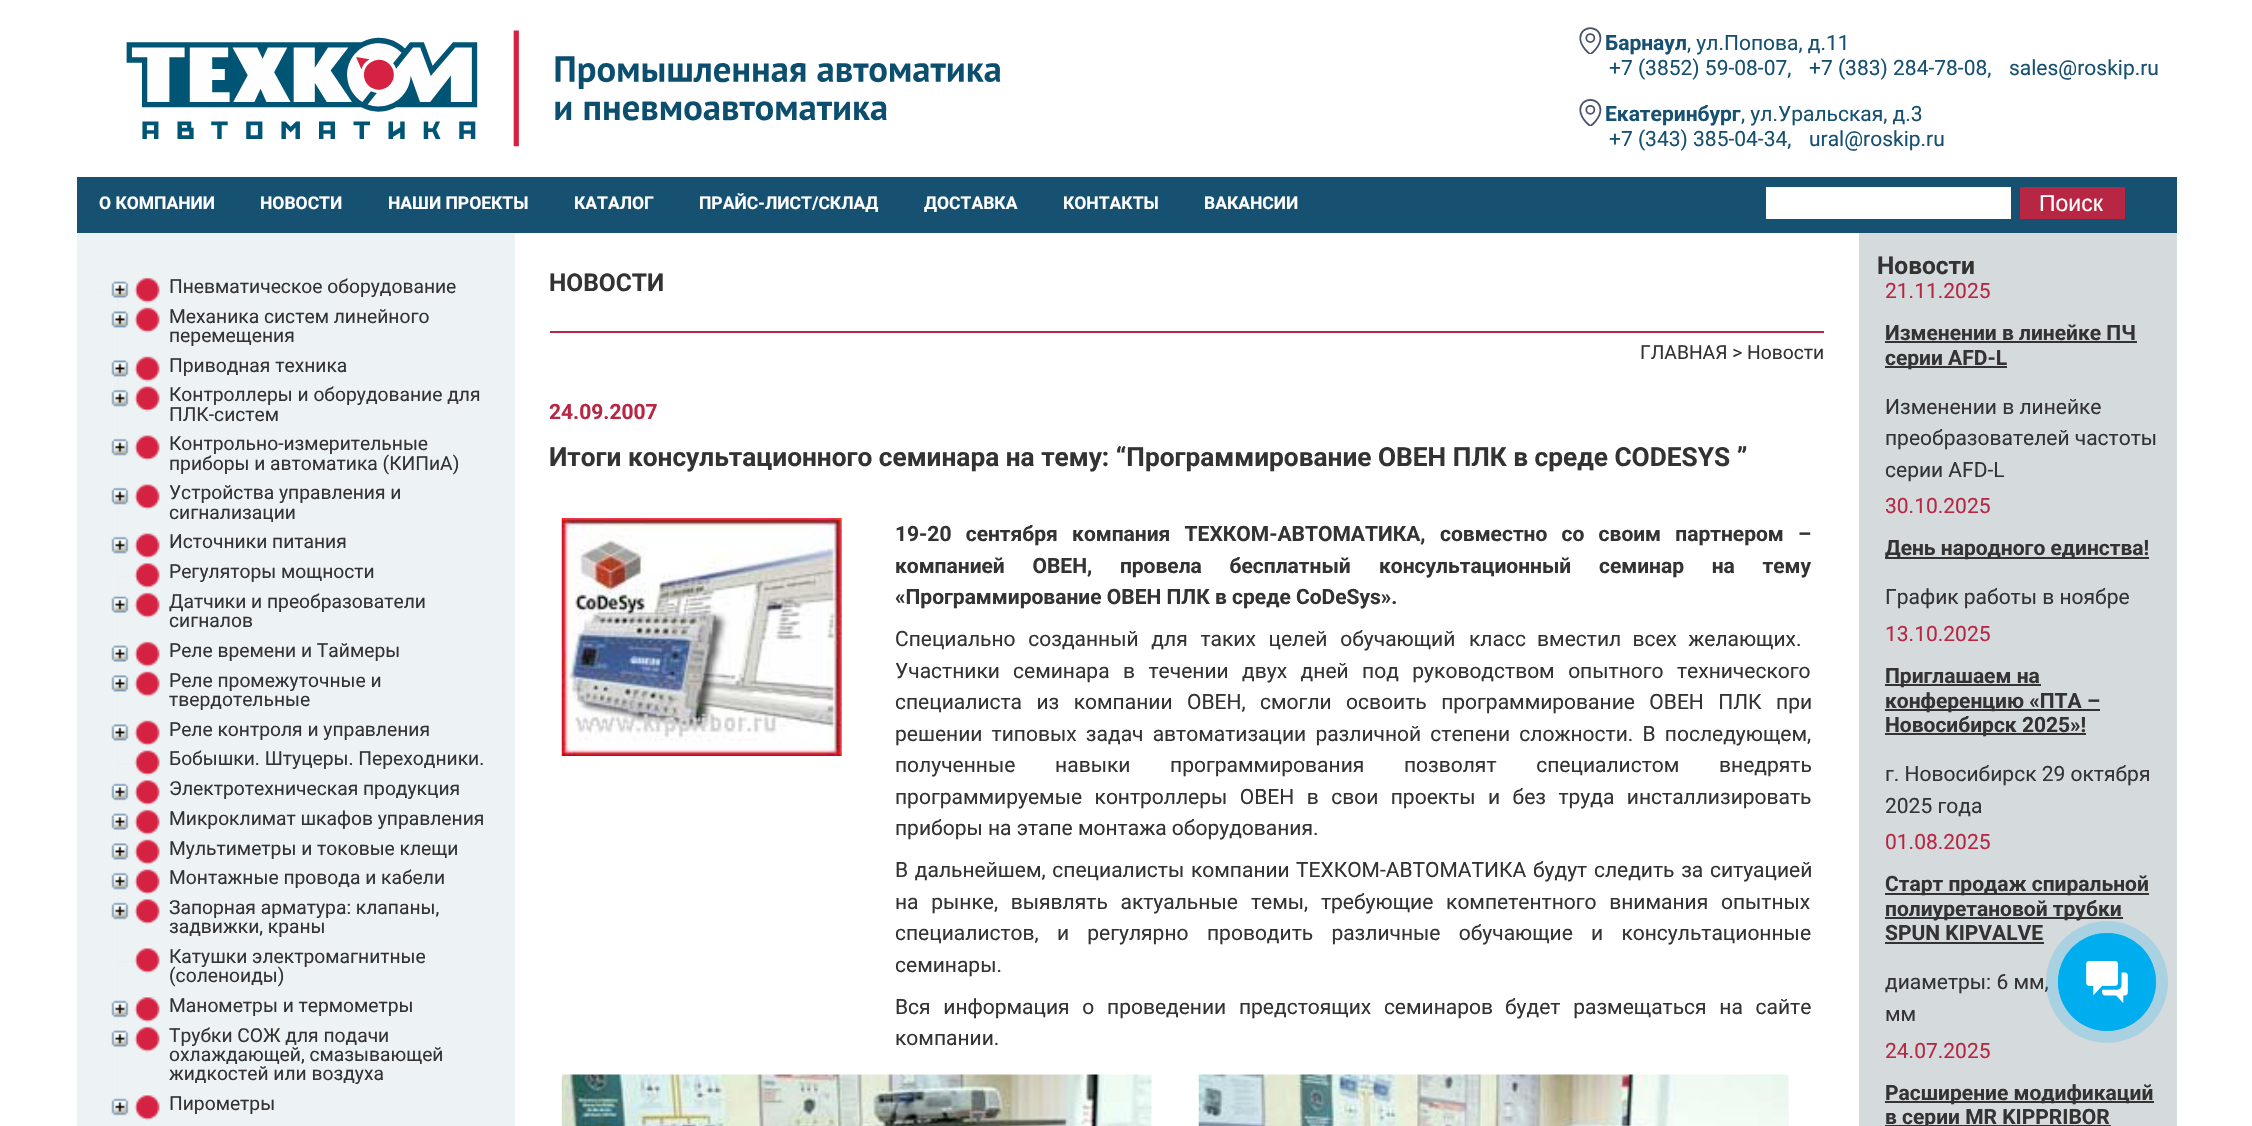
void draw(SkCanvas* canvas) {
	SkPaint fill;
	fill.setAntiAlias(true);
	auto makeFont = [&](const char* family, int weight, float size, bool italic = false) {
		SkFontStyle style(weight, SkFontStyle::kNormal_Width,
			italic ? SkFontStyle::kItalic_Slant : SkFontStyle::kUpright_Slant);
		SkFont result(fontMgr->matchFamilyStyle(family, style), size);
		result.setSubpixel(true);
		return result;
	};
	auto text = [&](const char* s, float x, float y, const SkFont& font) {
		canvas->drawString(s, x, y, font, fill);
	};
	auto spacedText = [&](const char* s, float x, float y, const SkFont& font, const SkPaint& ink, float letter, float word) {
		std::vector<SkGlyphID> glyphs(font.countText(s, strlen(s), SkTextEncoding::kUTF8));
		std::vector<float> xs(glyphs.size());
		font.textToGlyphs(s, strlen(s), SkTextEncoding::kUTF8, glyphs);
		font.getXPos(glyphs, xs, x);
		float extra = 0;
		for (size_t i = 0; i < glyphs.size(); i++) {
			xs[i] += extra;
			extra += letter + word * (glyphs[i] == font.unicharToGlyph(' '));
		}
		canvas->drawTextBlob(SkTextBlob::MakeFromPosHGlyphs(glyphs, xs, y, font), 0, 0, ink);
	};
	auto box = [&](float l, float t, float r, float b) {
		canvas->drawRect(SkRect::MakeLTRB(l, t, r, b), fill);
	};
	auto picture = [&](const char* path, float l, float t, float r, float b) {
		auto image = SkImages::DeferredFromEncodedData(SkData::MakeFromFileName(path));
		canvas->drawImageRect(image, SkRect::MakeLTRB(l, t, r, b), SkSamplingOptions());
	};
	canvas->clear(0xFFFFFFFF);
	picture("image0.png", 126, 30, 1001, 147);
	picture("image1.png", 1579, 27, 1602, 54);
	picture("image2.png", 1579, 99, 1602, 126);
	fill.setColor(0xFF175171);
	box(77, 177, 2177, 233);
	fill.setColor(0xFFFFFFFF);
	box(1766, 187, 2011, 219);
	fill.setColor(0xFFB72743);
	box(2020, 187, 2125, 219);
	fill.setColor(0xFFEDF3F5);
	box(77, 233, 515, 1126);
	picture("image3.png", 89, 291, 105, 292);
	picture("image4.png", 117, 277, 133, 306);
	picture("image5.png", 111, 281, 129, 298);
	picture("image6.png", 133, 291, 137, 292);
	picture("image7.png", 134, 277, 160, 304);
	picture("image8.png", 117, 306, 133, 355);
	picture("image9.png", 111, 311, 129, 328);
	picture("image10.png", 133, 320, 138, 322);
	picture("image11.png", 134, 307, 160, 333);
	picture("image12.png", 117, 355, 133, 385);
	picture("image9.png", 111, 360, 129, 377);
	picture("image10.png", 133, 369, 138, 371);
	picture("image11.png", 134, 356, 160, 382);
	picture("image13.png", 117, 385, 133, 434);
	picture("image14.png", 111, 389, 129, 407);
	picture("image15.png", 133, 399, 139, 401);
	picture("image16.png", 134, 386, 160, 412);
	picture("image13.png", 117, 434, 133, 483);
	picture("image14.png", 111, 438, 129, 456);
	picture("image15.png", 133, 448, 139, 450);
	picture("image16.png", 134, 435, 160, 461);
	picture("image13.png", 117, 483, 133, 532);
	picture("image14.png", 111, 487, 129, 505);
	picture("image15.png", 133, 497, 139, 499);
	picture("image16.png", 134, 484, 160, 510);
	picture("image17.png", 117, 532, 133, 562);
	picture("image14.png", 111, 536, 129, 554);
	picture("image15.png", 133, 546, 139, 548);
	picture("image16.png", 134, 533, 160, 559);
	picture("image18.png", 117, 562, 133, 591);
	picture("image19.png", 133, 576, 137, 577);
	picture("image20.png", 134, 563, 160, 589);
	picture("image21.png", 117, 592, 133, 640);
	picture("image5.png", 111, 596, 129, 613);
	picture("image6.png", 133, 606, 137, 607);
	picture("image7.png", 134, 592, 160, 619);
	picture("image4.png", 117, 641, 133, 670);
	picture("image5.png", 111, 645, 129, 662);
	picture("image6.png", 133, 655, 137, 656);
	picture("image7.png", 134, 641, 160, 668);
	picture("image8.png", 117, 670, 133, 719);
	picture("image9.png", 111, 675, 129, 692);
	picture("image10.png", 133, 684, 138, 686);
	picture("image11.png", 134, 671, 160, 697);
	picture("image12.png", 117, 719, 133, 749);
	picture("image9.png", 111, 724, 129, 741);
	picture("image10.png", 133, 733, 138, 735);
	picture("image11.png", 134, 720, 160, 746);
	picture("image17.png", 117, 749, 133, 779);
	picture("image15.png", 133, 763, 139, 765);
	picture("image16.png", 134, 750, 160, 776);
	picture("image18.png", 117, 779, 133, 808);
	picture("image22.png", 111, 783, 129, 801);
	picture("image19.png", 133, 793, 137, 794);
	picture("image20.png", 134, 780, 160, 806);
	picture("image4.png", 117, 809, 133, 838);
	picture("image5.png", 111, 813, 129, 830);
	picture("image6.png", 133, 823, 137, 824);
	picture("image7.png", 134, 809, 160, 836);
	picture("image12.png", 117, 838, 133, 868);
	picture("image9.png", 111, 843, 129, 860);
	picture("image10.png", 133, 852, 138, 854);
	picture("image11.png", 134, 839, 160, 865);
	picture("image17.png", 117, 868, 133, 898);
	picture("image14.png", 111, 872, 129, 890);
	picture("image15.png", 133, 882, 139, 884);
	picture("image16.png", 134, 869, 160, 895);
	picture("image23.png", 117, 898, 133, 947);
	picture("image22.png", 111, 902, 129, 920);
	picture("image19.png", 133, 912, 137, 913);
	picture("image20.png", 134, 899, 160, 925);
	picture("image23.png", 117, 947, 133, 996);
	picture("image19.png", 133, 961, 137, 962);
	picture("image20.png", 134, 948, 160, 974);
	picture("image18.png", 117, 996, 133, 1025);
	picture("image22.png", 111, 1000, 129, 1018);
	picture("image19.png", 133, 1010, 137, 1011);
	picture("image20.png", 134, 997, 160, 1023);
	picture("image24.png", 117, 1026, 133, 1094);
	picture("image5.png", 111, 1030, 129, 1047);
	picture("image6.png", 133, 1040, 137, 1041);
	picture("image7.png", 134, 1026, 160, 1053);
	picture("image25.png", 117, 1094, 133, 1109);
	picture("image26.png", 111, 1098, 129, 1116);
	picture("image19.png", 133, 1108, 137, 1109);
	picture("image20.png", 134, 1095, 160, 1121);
	fill.setColor(0xFFB72743);
	box(550, 331, 1824, 333);
	picture("image27.png", 561, 518, 842, 756);
	picture("image28.png", 561, 1074, 1152, 1126);
	picture("image29.png", 1198, 1074, 1789, 1126);
	fill.setColor(0xFFD5DADD);
	box(1859, 233, 2177, 1126);
	fill.setColor(0xFF333333);
	box(1885, 341, 2137, 343);
	box(1885, 366, 2007, 368);
	box(1885, 557, 2149, 559);
	box(1885, 684, 2041, 686);
	box(1885, 709, 2100, 711);
	box(1885, 733, 2086, 735);
	box(1885, 893, 2149, 895);
	box(1885, 917, 2123, 919);
	box(1885, 942, 2044, 944);
	box(1885, 1101, 2154, 1103);
	box(1885, 1125, 2111, 1126);
	auto font1 = makeFont("Roboto", 700, 21);
	fill.setColor(0xFF175171);
	text("Барнаул", 1605, 50, font1);
	auto font2 = makeFont("Roboto", 400, 21);
	text(", ул.Попова, д.11", 1687, 50, font2);
	text("+7 (3852) 59-08-07,", 1609, 75, font2);
	text("+7 (383) 284-78-08,", 1809, 75, font2);
	text("sales@roskip.ru", 2009, 75, font2);
	text("Екатеринбург", 1605, 121, font1);
	text(", ул.Уральская, д.3", 1741, 121, font2);
	text("+7 (343) 385-04-34,", 1609, 146, font2);
	text("ural@roskip.ru", 1809, 146, font2);
	auto font3 = makeFont("Roboto", 700, 17.5f);
	fill.setColor(0xFFFFFFFF);
	text("О КОМПАНИИ", 99, 209, font3);
	text("НОВОСТИ", 260, 209, font3);
	text("НАШИ ПРОЕКТЫ", 388, 209, font3);
	text("КАТАЛОГ", 574, 209, font3);
	text("ПРАЙС-ЛИСТ/СКЛАД", 699, 209, font3);
	text("ДОСТАВКА", 924, 209, font3);
	text("КОНТАКТЫ", 1063, 209, font3);
	text("ВАКАНСИИ", 1204, 209, font3);
	auto font4 = makeFont("Liberation Sans", 400, 23);
	text("Поиск", 2039, 211, font4);
	auto font5 = makeFont("Roboto", 400, 19.25f);
	fill.setColor(0xFF333333);
	text("Пневматическое оборудование", 169, 293, font5);
	text("Механика систем линейного", 169, 323, font5);
	text("перемещения", 169, 342, font5);
	text("Приводная техника", 169, 372, font5);
	text("Контроллеры и оборудование для", 169, 401, font5);
	text("ПЛК-систем", 169, 421, font5);
	text("Контрольно-измерительные", 169, 450, font5);
	text("приборы и автоматика (КИПиА)", 169, 470, font5);
	text("Устройства управления и", 169, 499, font5);
	text("сигнализации", 169, 519, font5);
	text("Источники питания", 169, 548, font5);
	text("Регуляторы мощности", 169, 578, font5);
	text("Датчики и преобразователи", 169, 608, font5);
	text("сигналов", 169, 627, font5);
	text("Реле времени и Таймеры", 169, 657, font5);
	text("Реле промежуточные и", 169, 687, font5);
	text("твердотельные", 169, 706, font5);
	text("Реле контроля и управления", 169, 736, font5);
	text("Бобышки. Штуцеры. Переходники.", 169, 765, font5);
	text("Электротехническая продукция", 169, 795, font5);
	text("Микроклимат шкафов управления", 169, 825, font5);
	text("Мультиметры и токовые клещи", 169, 855, font5);
	text("Монтажные провода и кабели", 169, 884, font5);
	text("Запорная арматура: клапаны,", 169, 914, font5);
	text("задвижки, краны", 169, 933, font5);
	text("Катушки электромагнитные", 169, 963, font5);
	text("(соленоиды)", 169, 982, font5);
	text("Манометры и термометры", 169, 1012, font5);
	text("Трубки СОЖ для подачи", 169, 1042, font5);
	text("охлаждающей, смазывающей", 169, 1061, font5);
	text("жидкостей или воздуха", 169, 1080, font5);
	text("Пирометры", 169, 1110, font5);
	auto font6 = makeFont("Roboto", 700, 24.5f);
	text("НОВОСТИ", 549, 291, font6);
	text("ГЛАВНАЯ > Новости", 1640, 359, font5);
	fill.setColor(0xFFB72743);
	text("24.09.2007", 549, 419, font1);
	auto font7 = makeFont("Roboto", 700, 26.25f);
	fill.setColor(0xFF333333);
	text("Итоги консультационного семинара на тему: “Программирование ОВЕН ПЛК в среде CODESYS ”", 549, 466, font7);
	spacedText("19-20 сентября компания ТЕХКОМ-АВТОМАТИКА,", 895, 541, font1, fill, 0, 9);
	spacedText("совместно со своим партнером –", 1440, 541, font1, fill, 0, 9);
	spacedText("компанией ОВЕН, провела бесплатный", 895, 573, font1, fill, 0, 22.5f);
	spacedText("консультационный семинар на тему", 1379, 573, font1, fill, 0, 22.5f);
	text("«Программирование ОВЕН ПЛК в среде CoDeSys».", 895, 604, font1);
	spacedText("Специально созданный для таких целей обучающий", 895, 646, font2, fill, 0, 7.5f);
	spacedText("класс вместил всех желающих.", 1469, 646, font2, fill, 0, 6);
	text("Участники", 895, 678, font2);
	spacedText("семинара в течении двух дней под руководством опытного технического", 1013, 678, font2, fill, 0, 8.25f);
	spacedText("специалиста из компании ОВЕН, смогли освоить программирование ОВЕН ПЛК при", 895, 709, font2, fill, 0, 9.25f);
	spacedText("решении типовых задач автоматизации различной степени сложности. В последующем,", 895, 741, font2, fill, 0, 4);
	spacedText("полученные навыки программирования позволят специалистом внедрять", 895, 772, font2, fill, 0, 34.5f);
	spacedText("программируемые контроллеры ОВЕН в свои проекты и без труда инсталлизировать", 895, 804, font2, fill, 0, 7.25f);
	text("приборы на этапе монтажа оборудования.", 895, 835, font2);
	spacedText("В дальнейшем, специалисты компании", 895, 877, font2, fill, 0, 1.5f);
	spacedText("ТЕХКОМ-АВТОМАТИКА будут следить за ситуацией", 1296, 877, font2, fill, 0, 1.5f);
	spacedText("на рынке, выявлять актуальные", 895, 909, font2, fill, 0, 7.5f);
	spacedText("темы, требующие компетентного внимания опытных", 1251, 909, font2, fill, 0, 7.5f);
	spacedText("специалистов, и регулярно", 895, 940, font2, fill, 0, 13);
	spacedText("проводить различные обучающие и консультационные", 1207, 940, font2, fill, 0, 13);
	text("семинары.", 895, 972, font2);
	spacedText("Вся информация о проведении предстоящих семинаров", 895, 1014, font2, fill, 0, 7.5f);
	spacedText("будет размещаться на сайте", 1505, 1014, font2, fill, 0, 7.5f);
	text("компании.", 895, 1045, font2);
	text("Новости", 1877, 274, font6);
	fill.setColor(0xFFB72743);
	text("21.11.2025", 1885, 298, font2);
	fill.setColor(0xFF333333);
	text("Изменении в линейке ПЧ", 1885, 340, font1);
	text("серии AFD-L", 1885, 365, font1);
	text("Изменении в линейке", 1885, 414, font2);
	text("преобразователей частоты", 1885, 445, font2);
	text("серии AFD-L", 1885, 477, font2);
	fill.setColor(0xFFB72743);
	text("30.10.2025", 1885, 513, font2);
	fill.setColor(0xFF333333);
	text("День народного единства!", 1885, 555, font1);
	text("График работы в ноябре", 1885, 604, font2);
	fill.setColor(0xFFB72743);
	text("13.10.2025", 1885, 641, font2);
	fill.setColor(0xFF333333);
	text("Приглашаем на", 1885, 683, font1);
	text("конференцию «ПТА –", 1885, 708, font1);
	text("Новосибирск 2025»!", 1885, 732, font1);
	text("г. Новосибирск 29 октября", 1885, 781, font2);
	text("2025 года", 1885, 813, font2);
	fill.setColor(0xFFB72743);
	text("01.08.2025", 1885, 849, font2);
	fill.setColor(0xFF333333);
	text("Старт продаж спиральной", 1885, 891, font1);
	text("полиуретановой трубки", 1885, 916, font1);
	text("SPUN KIPVALVE", 1885, 940, font1);
	text("диаметры: 6 мм,", 1885, 989, font2);
	text("мм", 1885, 1021, font2);
	fill.setColor(0xFFB72743);
	text("24.07.2025", 1885, 1058, font2);
	fill.setColor(0xFF333333);
	text("Расширение модификаций", 1885, 1100, font1);
	text("в серии MR KIPPRIBOR", 1885, 1124, font1);
	fill.setColor(0x3300AEEF);
	canvas->drawCircle(2107, 982, 61, fill);
	fill.setStyle(SkPaint::kStroke_Style);
	fill.setStrokeWidth(1);
	fill.setColor(0xFF00AEEF);
	canvas->drawCircle(2107, 982, 48.5f, fill);
	fill.setStyle(SkPaint::kFill_Style);
	canvas->drawCircle(2107, 982, 49, fill);
	picture("image30.png", 2086, 961, 2128, 1003);
}
